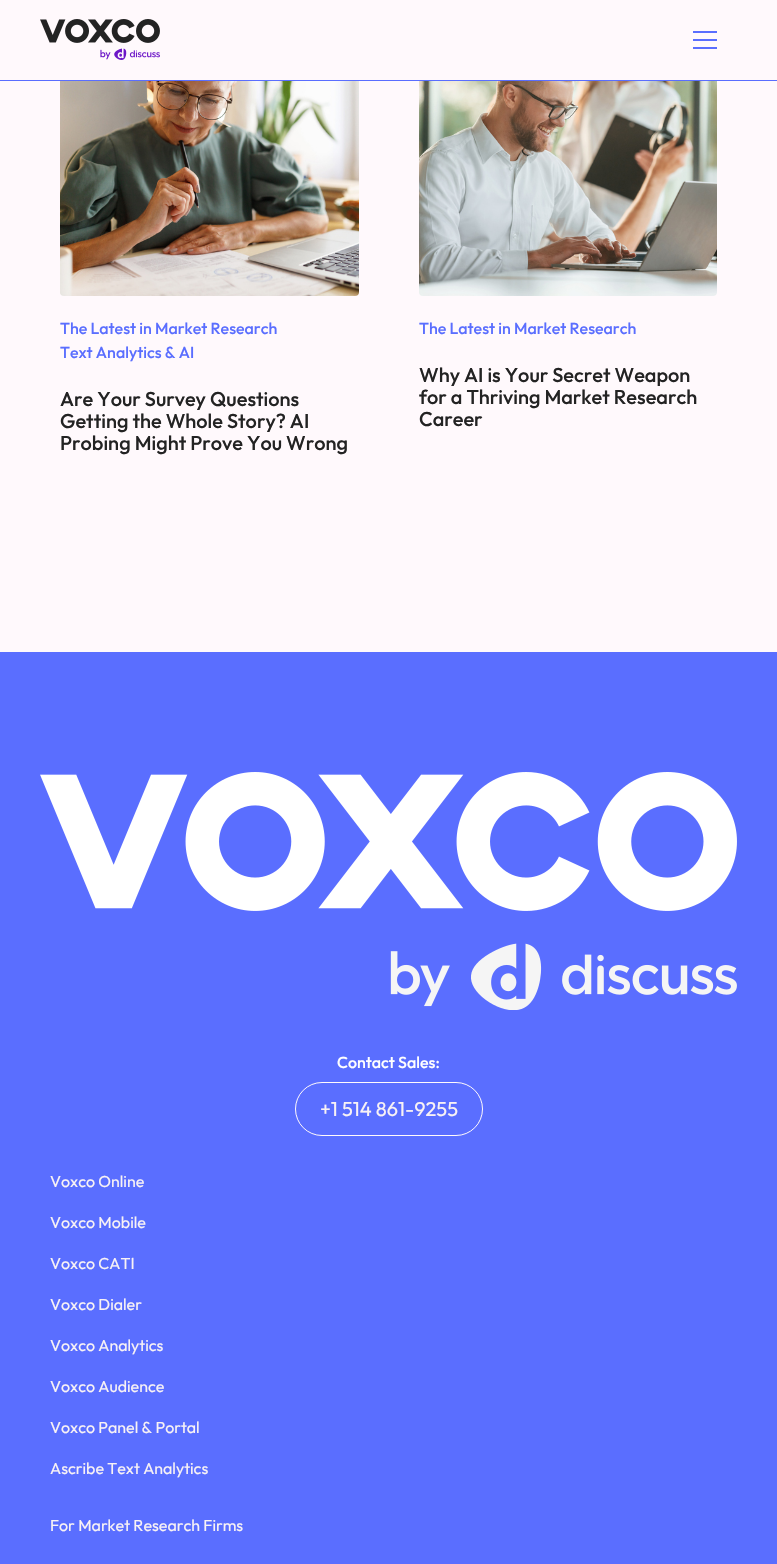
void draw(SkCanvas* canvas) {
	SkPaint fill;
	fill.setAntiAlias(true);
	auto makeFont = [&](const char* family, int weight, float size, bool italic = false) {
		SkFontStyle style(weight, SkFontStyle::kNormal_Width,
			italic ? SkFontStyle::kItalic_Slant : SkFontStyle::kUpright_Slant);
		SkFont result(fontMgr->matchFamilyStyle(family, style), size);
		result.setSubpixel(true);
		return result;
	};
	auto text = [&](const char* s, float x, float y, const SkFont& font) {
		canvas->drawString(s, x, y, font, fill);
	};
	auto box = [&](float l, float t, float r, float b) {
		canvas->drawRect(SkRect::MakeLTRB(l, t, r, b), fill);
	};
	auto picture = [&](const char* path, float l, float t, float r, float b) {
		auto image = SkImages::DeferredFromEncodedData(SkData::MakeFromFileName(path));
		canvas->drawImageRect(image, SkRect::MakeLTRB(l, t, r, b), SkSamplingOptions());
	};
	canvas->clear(0xFFFFF9FC);
	fill.setColor(0xFF5A6EFF);
	box(0, 80, 777, 81);
	picture("image0.png", 40, 19, 160, 60);
	box(693, 31, 717, 33);
	box(693, 39, 717, 41);
	box(693, 47, 717, 49);
	picture("image1.png", 60, 81, 359, 296);
	picture("image2.png", 419, 81, 717, 296);
	box(0, 652, 777, 1564);
	picture("image3.png", 40, 772, 737, 1010);
	fill.setStyle(SkPaint::kStroke_Style);
	fill.setStrokeWidth(1);
	fill.setColor(0xFFFFF9FC);
	canvas->drawRoundRect(SkRect::MakeLTRB(295.5f, 1082.5f, 482.5f, 1135.5f), 26.5f, 26.5f, fill);
	auto font1 = makeFont("Outfit", 500, 16);
	fill.setStyle(SkPaint::kFill_Style);
	fill.setColor(0xFF5A6EFF);
	text("The Latest in Market Research", 60, 334, font1);
	text("Text Analytics & AI", 60, 358, font1);
	auto font2 = makeFont("Outfit", 500, 20);
	fill.setColor(0xFF232323);
	text("Are Your Survey Questions", 60, 406, font2);
	text("Getting the Whole Story? AI", 60, 428, font2);
	text("Probing Might Prove You Wrong", 60, 450, font2);
	fill.setColor(0xFF5A6EFF);
	text("The Latest in Market Research", 419, 334, font1);
	fill.setColor(0xFF232323);
	text("Why AI is Your Secret Weapon", 419, 382, font2);
	text("for a Thriving Market Research", 419, 404, font2);
	text("Career", 419, 426, font2);
	fill.setColor(0xFFFFFFFF);
	text("Contact Sales:", 337, 1068, font1);
	auto font3 = makeFont("Outfit", 400, 20);
	fill.setColor(0xFFF8F2F5);
	text("+1 514 861-9255", 320, 1116, font3);
	auto font4 = makeFont("Outfit", 400, 16);
	text("Voxco Online", 50, 1187, font4);
	text("Voxco Mobile", 50, 1228, font4);
	text("Voxco CATI", 50, 1269, font4);
	text("Voxco Dialer", 50, 1310, font4);
	text("Voxco Analytics", 50, 1351, font4);
	text("Voxco Audience", 50, 1392, font4);
	text("Voxco Panel & Portal", 50, 1433, font4);
	text("Ascribe Text Analytics", 50, 1474, font4);
	text("For Market Research Firms", 50, 1531, font4);
}
